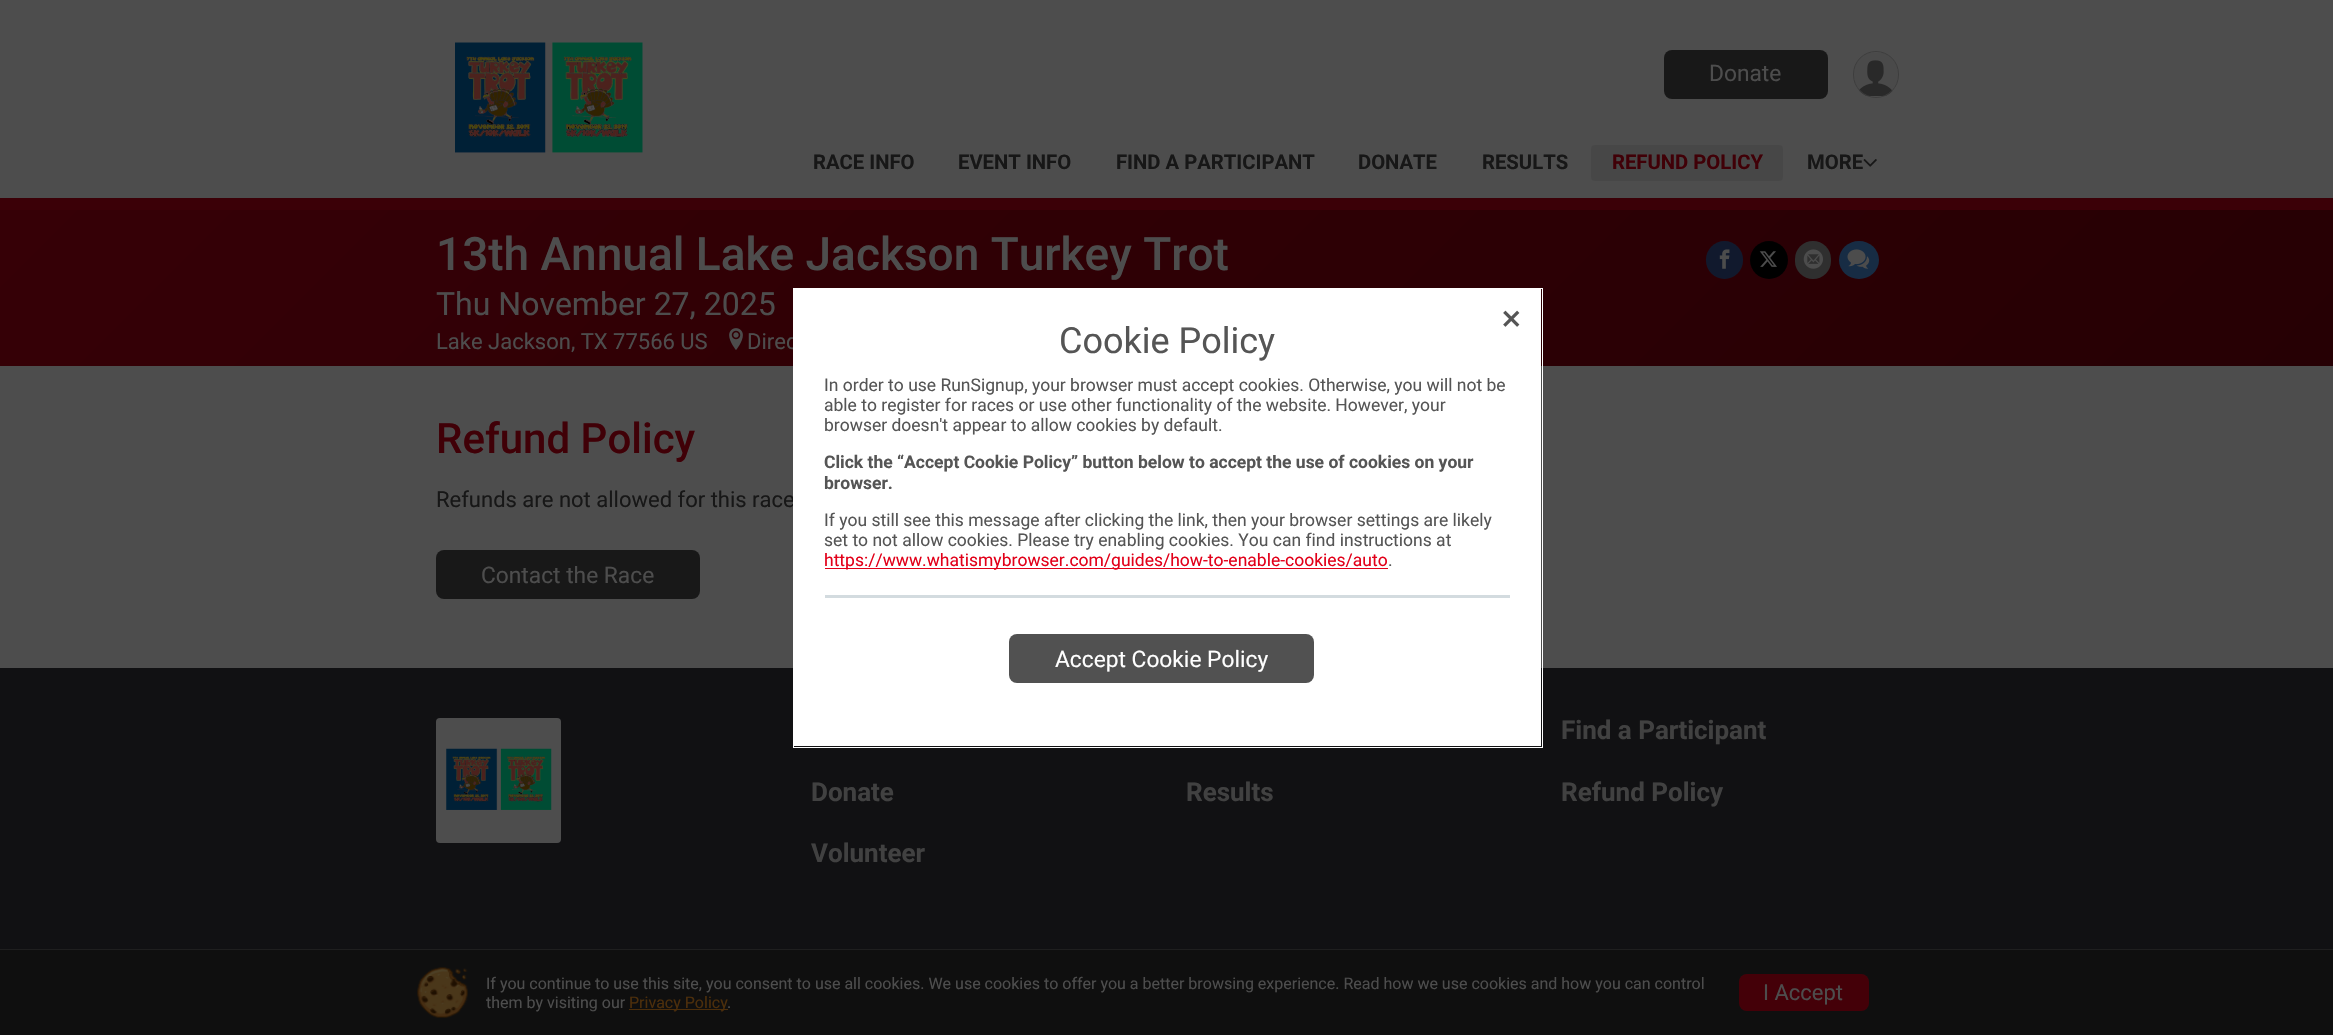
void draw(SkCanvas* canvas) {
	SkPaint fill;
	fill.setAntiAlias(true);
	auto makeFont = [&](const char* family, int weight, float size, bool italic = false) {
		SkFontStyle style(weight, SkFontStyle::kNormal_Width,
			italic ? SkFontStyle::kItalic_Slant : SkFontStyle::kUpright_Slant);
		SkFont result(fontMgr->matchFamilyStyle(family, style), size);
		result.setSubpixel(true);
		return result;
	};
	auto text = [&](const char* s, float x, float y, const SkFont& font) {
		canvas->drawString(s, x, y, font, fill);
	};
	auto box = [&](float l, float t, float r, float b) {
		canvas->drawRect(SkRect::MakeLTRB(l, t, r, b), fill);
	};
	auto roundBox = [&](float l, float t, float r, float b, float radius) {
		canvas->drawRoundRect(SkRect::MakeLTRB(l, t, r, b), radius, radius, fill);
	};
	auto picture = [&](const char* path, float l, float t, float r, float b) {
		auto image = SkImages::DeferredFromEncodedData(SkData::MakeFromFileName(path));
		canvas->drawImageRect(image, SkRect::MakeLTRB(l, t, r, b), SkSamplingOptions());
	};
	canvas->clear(0xFF4D4D4D);
	picture("image0.png", 455, 42, 643, 153);
	fill.setColor(0xFF181818);
	roundBox(1664, 50, 1828, 99, 8);
	picture("image1.png", 1854, 53, 1898, 96);
	fill.setStyle(SkPaint::kStroke_Style);
	fill.setStrokeWidth(1);
	fill.setColor(0xFF3D3D3D);
	canvas->drawRoundRect(SkRect::MakeLTRB(1853.5f, 51.5f, 1898.5f, 97.5f), 22.5f, 22.5f, fill);
	fill.setStyle(SkPaint::kFill_Style);
	fill.setColor(0xFF474747);
	roundBox(1591, 145, 1783, 181, 4);
	picture("image2.png", 1863, 159, 1877, 167);
	{
		const SkColor colors[] = {0xFF260004, 0xFF360006};
		const float stops[] = {0, 1};
		const SkPoint ends[] = {{1789, 911}, {544, -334}};
		fill.setShader(SkGradientShader::MakeLinear(ends, colors, stops, 2, SkTileMode::kClamp));
		fill.setAlpha(255);
	}
	box(0, 210, 2333, 366);
	fill.setShader(nullptr);
	fill.setColor(0xFF3B0007);
	box(0, 198, 2333, 210);
	picture("image3.png", 729, 328, 743, 350);
	fill.setColor(0xFF11192D);
	roundBox(1706, 241, 1743, 279, 18.5f);
	picture("image4.png", 1719, 249, 1730, 269);
	fill.setColor(0xFF000000);
	canvas->drawCircle(1769, 260, 19, fill);
	picture("image5.png", 1759, 251, 1777, 267);
	fill.setColor(0xFF2F2F2F);
	roundBox(1795, 241, 1831, 279, 18);
	picture("image6.png", 1803, 249, 1823, 269);
	fill.setColor(0xFF172C44);
	canvas->drawOval(SkRect::MakeLTRB(1839, 241, 1879, 279), fill);
	picture("image7.png", 1847, 249, 1870, 269);
	fill.setColor(0xFF181818);
	roundBox(436, 550, 700, 599, 8);
	fill.setColor(0xFF111113);
	box(0, 668, 2333, 949);
	fill.setColor(0xFF4D4D4D);
	roundBox(436, 718, 561, 843, 4);
	picture("image8.png", 446, 748, 552, 810);
	fill.setColor(0xFF0F0F0F);
	box(0, 950, 2333, 1035);
	fill.setColor(0xFF1F1F1F);
	box(0, 949, 2333, 950);
	picture("image10.png", 417, 967, 468, 1018);
	fill.setColor(0xFF4C2E0B);
	box(629, 1009, 728, 1010);
	fill.setColor(0xFF440008);
	roundBox(1739, 974, 1869, 1011, 8);
	auto font1 = makeFont("Roboto", 400, 22.75f);
	fill.setColor(0xFF4D4D4D);
	text("Donate", 1709, 81, font1);
	auto font2 = makeFont("Roboto", 700, 20.25f);
	fill.setColor(0xFF171717);
	text("RACE INFO", 813, 169, font2);
	text("EVENT INFO", 958, 169, font2);
	text("FIND A PARTICIPANT", 1116, 169, font2);
	text("DONATE", 1358, 169, font2);
	text("RESULTS", 1482, 169, font2);
	fill.setColor(0xFF400007);
	text("REFUND POLICY", 1612, 169, font2);
	fill.setColor(0xFF171717);
	text("MORE", 1807, 169, font2);
	auto font3 = makeFont("Roboto", 500, 46);
	fill.setColor(0xFF4D4D4D);
	text("13th Annual Lake Jackson Turkey Trot", 436, 270, font3);
	auto font4 = makeFont("Roboto", 400, 32);
	text("Thu November 27, 2025", 436, 315, font4);
	auto font5 = makeFont("Roboto", 400, 22);
	text("Lake Jackson, TX 77566 US", 436, 349, font5);
	text("Direc", 747, 349, font5);
	auto font6 = makeFont("Roboto", 500, 42);
	fill.setColor(0xFF400007);
	text("Refund Policy", 436, 453, font6);
	fill.setColor(0xFF171717);
	text("Refunds are not allowed for this race", 436, 507, font5);
	fill.setColor(0xFF4D4D4D);
	text("Contact the Race", 481, 583, font1);
	auto font7 = makeFont("Roboto", 700, 26);
	fill.setColor(0xFF414141);
	text("Donate", 811, 801, font7);
	text("Volunteer", 811, 862, font7);
	text("Results", 1186, 801, font7);
	text("Find a Participant", 1561, 739, font7);
	text("Refund Policy", 1561, 801, font7);
	fill.setStyle(SkPaint::kStroke_Style);
	fill.setColor(0xFFFFFFFF);
	canvas->drawRect(SkRect::MakeLTRB(793.5f, 288.5f, 1542.5f, 747.5f), fill);
	fill.setStyle(SkPaint::kFill_Style);
	box(794, 289, 1541, 746);
	picture("image9.png", 1503, 310, 1520, 327);
	auto font8 = makeFont("Roboto", 400, 36);
	fill.setColor(0xFF555555);
	text("Cookie Policy", 1059, 353, font8);
	auto font9 = makeFont("Roboto", 400, 17.5f);
	text("In order to use RunSignup, your browser must accept cookies. Otherwise, you will not be", 824, 391, font9);
	text("able to register for races or use other functionality of the website. However, your", 824, 411, font9);
	text("browser doesn't appear to allow cookies by default.", 824, 431, font9);
	auto font10 = makeFont("Roboto", 700, 17.5f);
	text("Click the “Accept Cookie Policy” button below to accept the use of cookies on your", 824, 468, font10);
	text("browser.", 824, 489, font10);
	text("If you still see this message after clicking the link, then your browser settings are likely", 824, 526, font9);
	text("set to not allow cookies. Please try enabling cookies. You can find instructions at", 824, 546, font9);
	fill.setColor(0xFFE20019);
	box(825, 568, 1388, 569);
	text("https://www.whatismybrowser.com/guides/how-to-enable-cookies/auto", 824, 566, font9);
	fill.setColor(0xFF555555);
	text(".", 1388, 566, font9);
	fill.setColor(0xFFD3DBDF);
	box(825, 595, 1510, 598);
	fill.setColor(0xFF515151);
	roundBox(1009, 634, 1314, 683, 8);
	fill.setColor(0xFFFFFFFF);
	text("Accept Cookie Policy", 1055, 667, font1);
	auto font11 = makeFont("Roboto", 400, 16);
	fill.setColor(0xFF4D4D4D);
	text("If you continue to use this site, you consent to use all cookies. We use cookies to offer you a better browsing experience. Read how we use cookies and how you can control", 486, 989, font11);
	text("them by visiting our", 486, 1008, font11);
	fill.setColor(0xFF4C2E0B);
	text("Privacy Policy", 629, 1008, font11);
	fill.setColor(0xFF4D4D4D);
	text(".", 727, 1008, font11);
	text("I Accept", 1763, 1000, font5);
}
